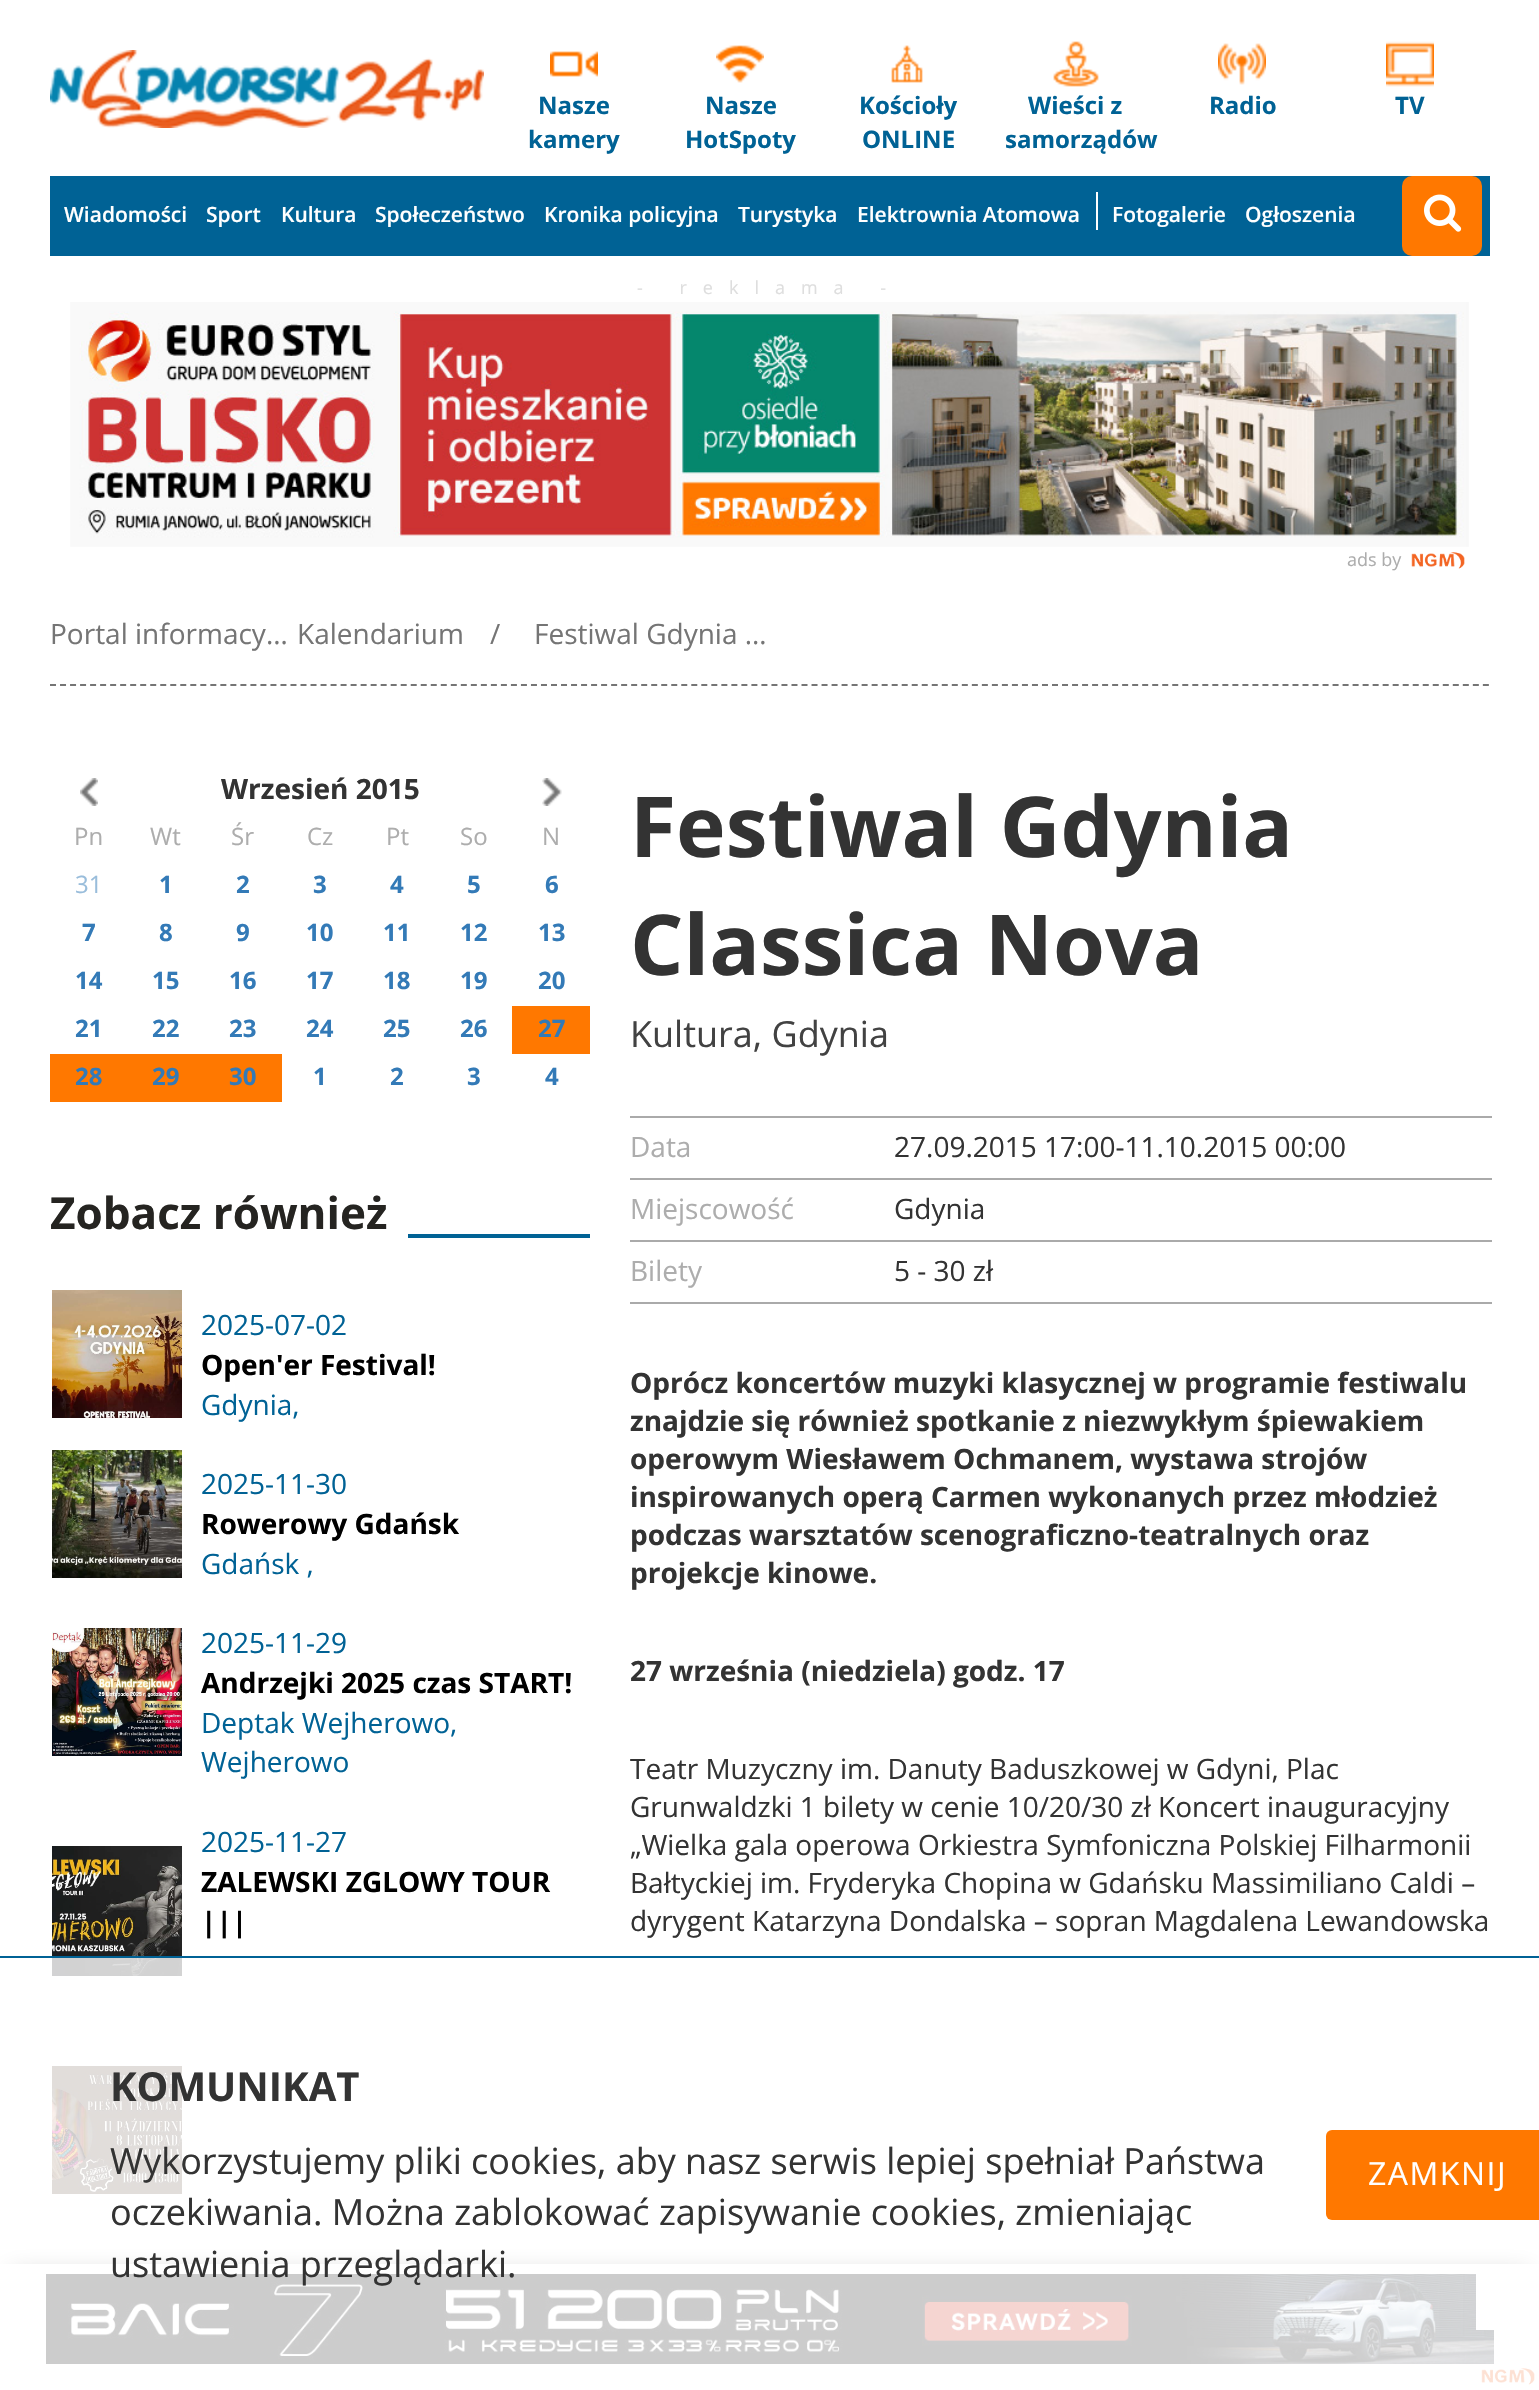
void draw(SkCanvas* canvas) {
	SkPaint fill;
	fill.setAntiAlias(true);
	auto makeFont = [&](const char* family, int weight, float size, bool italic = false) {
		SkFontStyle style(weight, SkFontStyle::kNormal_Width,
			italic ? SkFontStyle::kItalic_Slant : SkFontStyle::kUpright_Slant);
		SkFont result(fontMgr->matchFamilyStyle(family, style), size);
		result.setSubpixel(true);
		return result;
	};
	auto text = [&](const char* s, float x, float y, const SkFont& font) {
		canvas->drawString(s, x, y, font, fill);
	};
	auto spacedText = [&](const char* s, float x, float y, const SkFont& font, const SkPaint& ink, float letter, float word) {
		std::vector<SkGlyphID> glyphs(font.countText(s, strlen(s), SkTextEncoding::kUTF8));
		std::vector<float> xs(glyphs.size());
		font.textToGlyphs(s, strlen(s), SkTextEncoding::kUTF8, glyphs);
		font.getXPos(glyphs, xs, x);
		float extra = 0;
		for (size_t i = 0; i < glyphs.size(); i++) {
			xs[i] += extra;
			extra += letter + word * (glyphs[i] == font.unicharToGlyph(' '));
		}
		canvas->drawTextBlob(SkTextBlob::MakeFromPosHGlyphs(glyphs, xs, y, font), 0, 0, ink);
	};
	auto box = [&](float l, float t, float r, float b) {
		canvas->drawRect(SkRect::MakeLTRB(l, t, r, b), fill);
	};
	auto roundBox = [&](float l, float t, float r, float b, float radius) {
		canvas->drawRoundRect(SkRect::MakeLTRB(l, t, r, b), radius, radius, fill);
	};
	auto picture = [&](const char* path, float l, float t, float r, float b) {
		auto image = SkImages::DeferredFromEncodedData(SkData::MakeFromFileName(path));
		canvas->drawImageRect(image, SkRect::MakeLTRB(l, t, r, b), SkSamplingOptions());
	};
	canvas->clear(0xFFFFFFFF);
	picture("image0.png", 50, 50, 484, 128);
	picture("image1.png", 550, 51, 598, 77);
	picture("image2.png", 716, 45, 764, 83);
	picture("image3.png", 891, 45, 923, 83);
	picture("image4.png", 1053, 41, 1099, 87);
	picture("image5.png", 1218, 43, 1266, 85);
	picture("image6.png", 1386, 41, 1434, 87);
	fill.setColor(0xFF006295);
	box(50, 176, 1490, 256);
	fill.setColor(0xFFFFFFFF);
	box(1096, 192, 1098, 230);
	fill.setColor(0xFFFF7800);
	roundBox(1402, 176, 1482, 256, 10);
	picture("image7.png", 1424, 194, 1462, 232);
	picture("image8.png", 70, 302, 1469, 547);
	picture("image9.png", 1411, 552, 1465, 569);
	fill.setStyle(SkPaint::kStroke_Style);
	fill.setStrokeWidth(2);
	fill.setColor(0xFF757575);
	fill.setPathEffect(SkDashPathEffect::Make({{6, 4.02f}}, 0));
	canvas->drawPath(SkPathBuilder().moveTo(50, 685).lineTo(1490, 685).detach(), fill);
	fill.setPathEffect(nullptr);
	picture("image10.png", 80, 778, 98, 806);
	picture("image11.png", 542, 778, 562, 806);
	fill.setStyle(SkPaint::kFill_Style);
	fill.setColor(0xFFFF7800);
	box(512, 1006, 590, 1054);
	box(50, 1054, 282, 1102);
	fill.setColor(0xFF006295);
	box(408, 1234, 590, 1238);
	picture("image12.png", 52, 1290, 182, 1418);
	picture("image13.png", 52, 1450, 182, 1578);
	picture("image14.png", 52, 1628, 182, 1756);
	picture("image15.png", 52, 1846, 182, 1976);
	picture("image16.png", 52, 2066, 182, 2194);
	fill.setColor(0xFFAAAAAA);
	box(630, 1116, 1492, 1118);
	box(630, 1178, 1492, 1180);
	box(630, 1240, 1492, 1242);
	box(630, 1302, 1492, 1304);
	canvas->save();
	canvas->clipRect(SkRect::MakeLTRB(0, 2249, 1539, 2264));
	fill.setColor(0xFF000000);
	fill.setMaskFilter(SkMaskFilter::MakeBlur(kNormal_SkBlurStyle, 12));
	canvas->drawRect(SkRect::MakeLTRB(10, 2274, 1530, 2380), fill);
	fill.setMaskFilter(nullptr);
	canvas->restore();
	picture("image17.png", 46, 2274, 1494, 2364);
	fill.setColor(0xFFFFFFFF);
	box(1476, 2274, 1494, 2330);
	picture("image18.png", 1481, 2368, 1535, 2385);
	fill.setColor(0xCCFFFFFF);
	box(0, 1958, 1539, 2385);
	fill.setColor(0xFF006295);
	box(0, 1956, 1539, 1958);
	fill.setColor(0xFFFF7800);
	roundBox(1326, 2130, 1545, 2220, 6);
	auto font1 = makeFont("Open Sans", 700, 24);
	fill.setColor(0xFF006295);
	text("Nasze", 538, 114, font1);
	text("kamery", 528, 148, font1);
	text("Nasze", 705, 114, font1);
	text("HotSpoty", 685, 148, font1);
	text("Kościoły", 859, 114, font1);
	text("ONLINE", 862, 148, font1);
	text("Wieści z", 1028, 114, font1);
	text("samorządów", 1005, 148, font1);
	text("Radio", 1209, 114, font1);
	text("TV", 1395, 114, font1);
	auto font2 = makeFont("Open Sans", 600, 21);
	fill.setColor(0xFFFFFFFF);
	text("Wiadomości", 64, 222, font2);
	text("Sport", 206, 222, font2);
	text("Kultura", 281, 222, font2);
	text("Społeczeństwo", 375, 222, font2);
	text("Kronika policyjna", 544, 222, font2);
	text("Turystyka", 738, 222, font2);
	text("Elektrownia Atomowa", 857, 222, font2);
	text("Fotogalerie", 1112, 222, font2);
	text("Ogłoszenia", 1245, 222, font2);
	auto font3 = makeFont("Open Sans", 400, 18);
	fill.setColor(0xFFDEDEDE);
	spacedText("- reklama -", 637, 294, font3, fill, 16, 0);
	fill.setColor(0xFFADADAD);
	text("ads by", 1347, 566, font3);
	auto font4 = makeFont("Open Sans", 400, 28);
	fill.setColor(0xFF757575);
	text("Portal informacy…", 50, 644, font4);
	text("Kalendarium", 297, 644, font4);
	text("/", 490, 644, font4);
	text("Festiwal Gdynia …", 534, 644, font4);
	auto font5 = makeFont("Open Sans", 700, 28);
	fill.setColor(0xFF333333);
	text("Wrzesień 2015", 221, 799, font5);
	auto font6 = makeFont("Open Sans", 400, 24);
	fill.setColor(0xFFADADAD);
	text("Pn", 74, 845, font6);
	text("Wt", 150, 845, font6);
	text("Śr", 231, 845, font6);
	text("Cz", 307, 845, font6);
	text("Pt", 386, 845, font6);
	text("So", 460, 845, font6);
	text("N", 542, 845, font6);
	fill.setColor(0xFF99BDDB);
	text("31", 75, 893, font6);
	fill.setColor(0xFF337AB7);
	text("1", 159, 893, font1);
	text("2", 236, 893, font1);
	text("3", 313, 893, font1);
	text("4", 390, 893, font1);
	text("5", 467, 893, font1);
	text("6", 545, 893, font1);
	text("7", 82, 941, font1);
	text("8", 159, 941, font1);
	text("9", 236, 941, font1);
	text("10", 306, 941, font1);
	text("11", 383, 941, font1);
	text("12", 460, 941, font1);
	text("13", 538, 941, font1);
	text("14", 75, 989, font1);
	text("15", 152, 989, font1);
	text("16", 229, 989, font1);
	text("17", 306, 989, font1);
	text("18", 383, 989, font1);
	text("19", 460, 989, font1);
	text("20", 538, 989, font1);
	text("21", 75, 1037, font1);
	text("22", 152, 1037, font1);
	text("23", 229, 1037, font1);
	text("24", 306, 1037, font1);
	text("25", 383, 1037, font1);
	text("26", 460, 1037, font1);
	text("27", 538, 1037, font1);
	text("28", 75, 1085, font1);
	text("29", 152, 1085, font1);
	text("30", 229, 1085, font1);
	text("1", 313, 1085, font1);
	text("2", 390, 1085, font1);
	text("3", 467, 1085, font1);
	text("4", 545, 1085, font1);
	auto font7 = makeFont("Open Sans", 700, 44);
	fill.setColor(0xFF252421);
	text("Zobacz również", 50, 1229, font7);
	fill.setColor(0xFF006295);
	text("2025-07-02", 201, 1335, font4);
	fill.setColor(0xFF000000);
	text("Open'er Festival!", 201, 1375, font5);
	fill.setColor(0xFF006295);
	text("Gdynia,", 201, 1415, font4);
	text("2025-11-30", 201, 1494, font4);
	fill.setColor(0xFF000000);
	text("Rowerowy Gdańsk", 201, 1534, font5);
	fill.setColor(0xFF006295);
	text("Gdańsk ,", 201, 1574, font4);
	text("2025-11-29", 201, 1653, font4);
	fill.setColor(0xFF000000);
	text("Andrzejki 2025 czas START!", 201, 1693, font5);
	fill.setColor(0xFF006295);
	text("Deptak Wejherowo,", 201, 1733, font4);
	text("Wejherowo", 201, 1772, font4);
	text("2025-11-27", 201, 1852, font4);
	fill.setColor(0xFF000000);
	text("ZALEWSKI ZGLOWY TOUR", 201, 1892, font5);
	text("|||", 201, 1932, font5);
	auto font8 = makeFont("Open Sans", 700, 84);
	fill.setColor(0xFF333333);
	text("Festiwal Gdynia", 630, 857, font8);
	text("Classica Nova", 630, 975, font8);
	auto font9 = makeFont("Open Sans", 400, 36);
	fill.setColor(0xFF424242);
	text("Kultura, Gdynia", 630, 1047, font9);
	fill.setColor(0xFFADADAD);
	text("Data", 630, 1157, font4);
	fill.setColor(0xFF333333);
	text("27.09.2015 17:00-11.10.2015 00:00", 894, 1157, font4);
	fill.setColor(0xFFADADAD);
	text("Miejscowość", 630, 1219, font4);
	fill.setColor(0xFF333333);
	text("Gdynia", 894, 1219, font4);
	fill.setColor(0xFFADADAD);
	text("Bilety", 630, 1281, font4);
	fill.setColor(0xFF333333);
	text("5 - 30 zł", 894, 1281, font4);
	text("Oprócz koncertów muzyki klasycznej w programie festiwalu", 630, 1393, font5);
	text("znajdzie się również spotkanie z niezwykłym śpiewakiem", 630, 1431, font5);
	text("operowym Wiesławem Ochmanem, wystawa strojów", 630, 1469, font5);
	text("inspirowanych operą Carmen wykonanych przez młodzież", 630, 1507, font5);
	text("podczas warsztatów scenograficzno-teatralnych oraz", 630, 1545, font5);
	text("projekcje kinowe.", 630, 1583, font5);
	text("27 września (niedziela) godz. 17", 630, 1681, font5);
	text("Teatr Muzyczny im. Danuty Baduszkowej w Gdyni, Plac", 630, 1779, font4);
	text("Grunwaldzki 1 bilety w cenie 10/20/30 zł Koncert inauguracyjny", 630, 1817, font4);
	text("„Wielka gala operowa Orkiestra Symfoniczna Polskiej Filharmonii", 630, 1855, font4);
	text("Bałtyckiej im. Fryderyka Chopina w Gdańsku Massimiliano Caldi –", 630, 1893, font4);
	text("dyrygent Katarzyna Dondalska – sopran Magdalena Lewandowska", 630, 1931, font4);
	auto font10 = makeFont("Open Sans", 700, 40);
	text("KOMUNIKAT", 110, 2101, font10);
	text("Wykorzystujemy pliki cookies, aby nasz serwis lepiej spełniał Państwa", 110, 2174, font9);
	text("oczekiwania. Można zablokować zapisywanie cookies, zmieniając", 110, 2225, font9);
	text("ustawienia przeglądarki.", 110, 2277, font9);
	auto font11 = makeFont("Open Sans", 400, 32);
	fill.setColor(0xFFFFFFFF);
	spacedText("ZAMKNIJ", 1368, 2185, font11, fill, 1.5f, 0);
}
